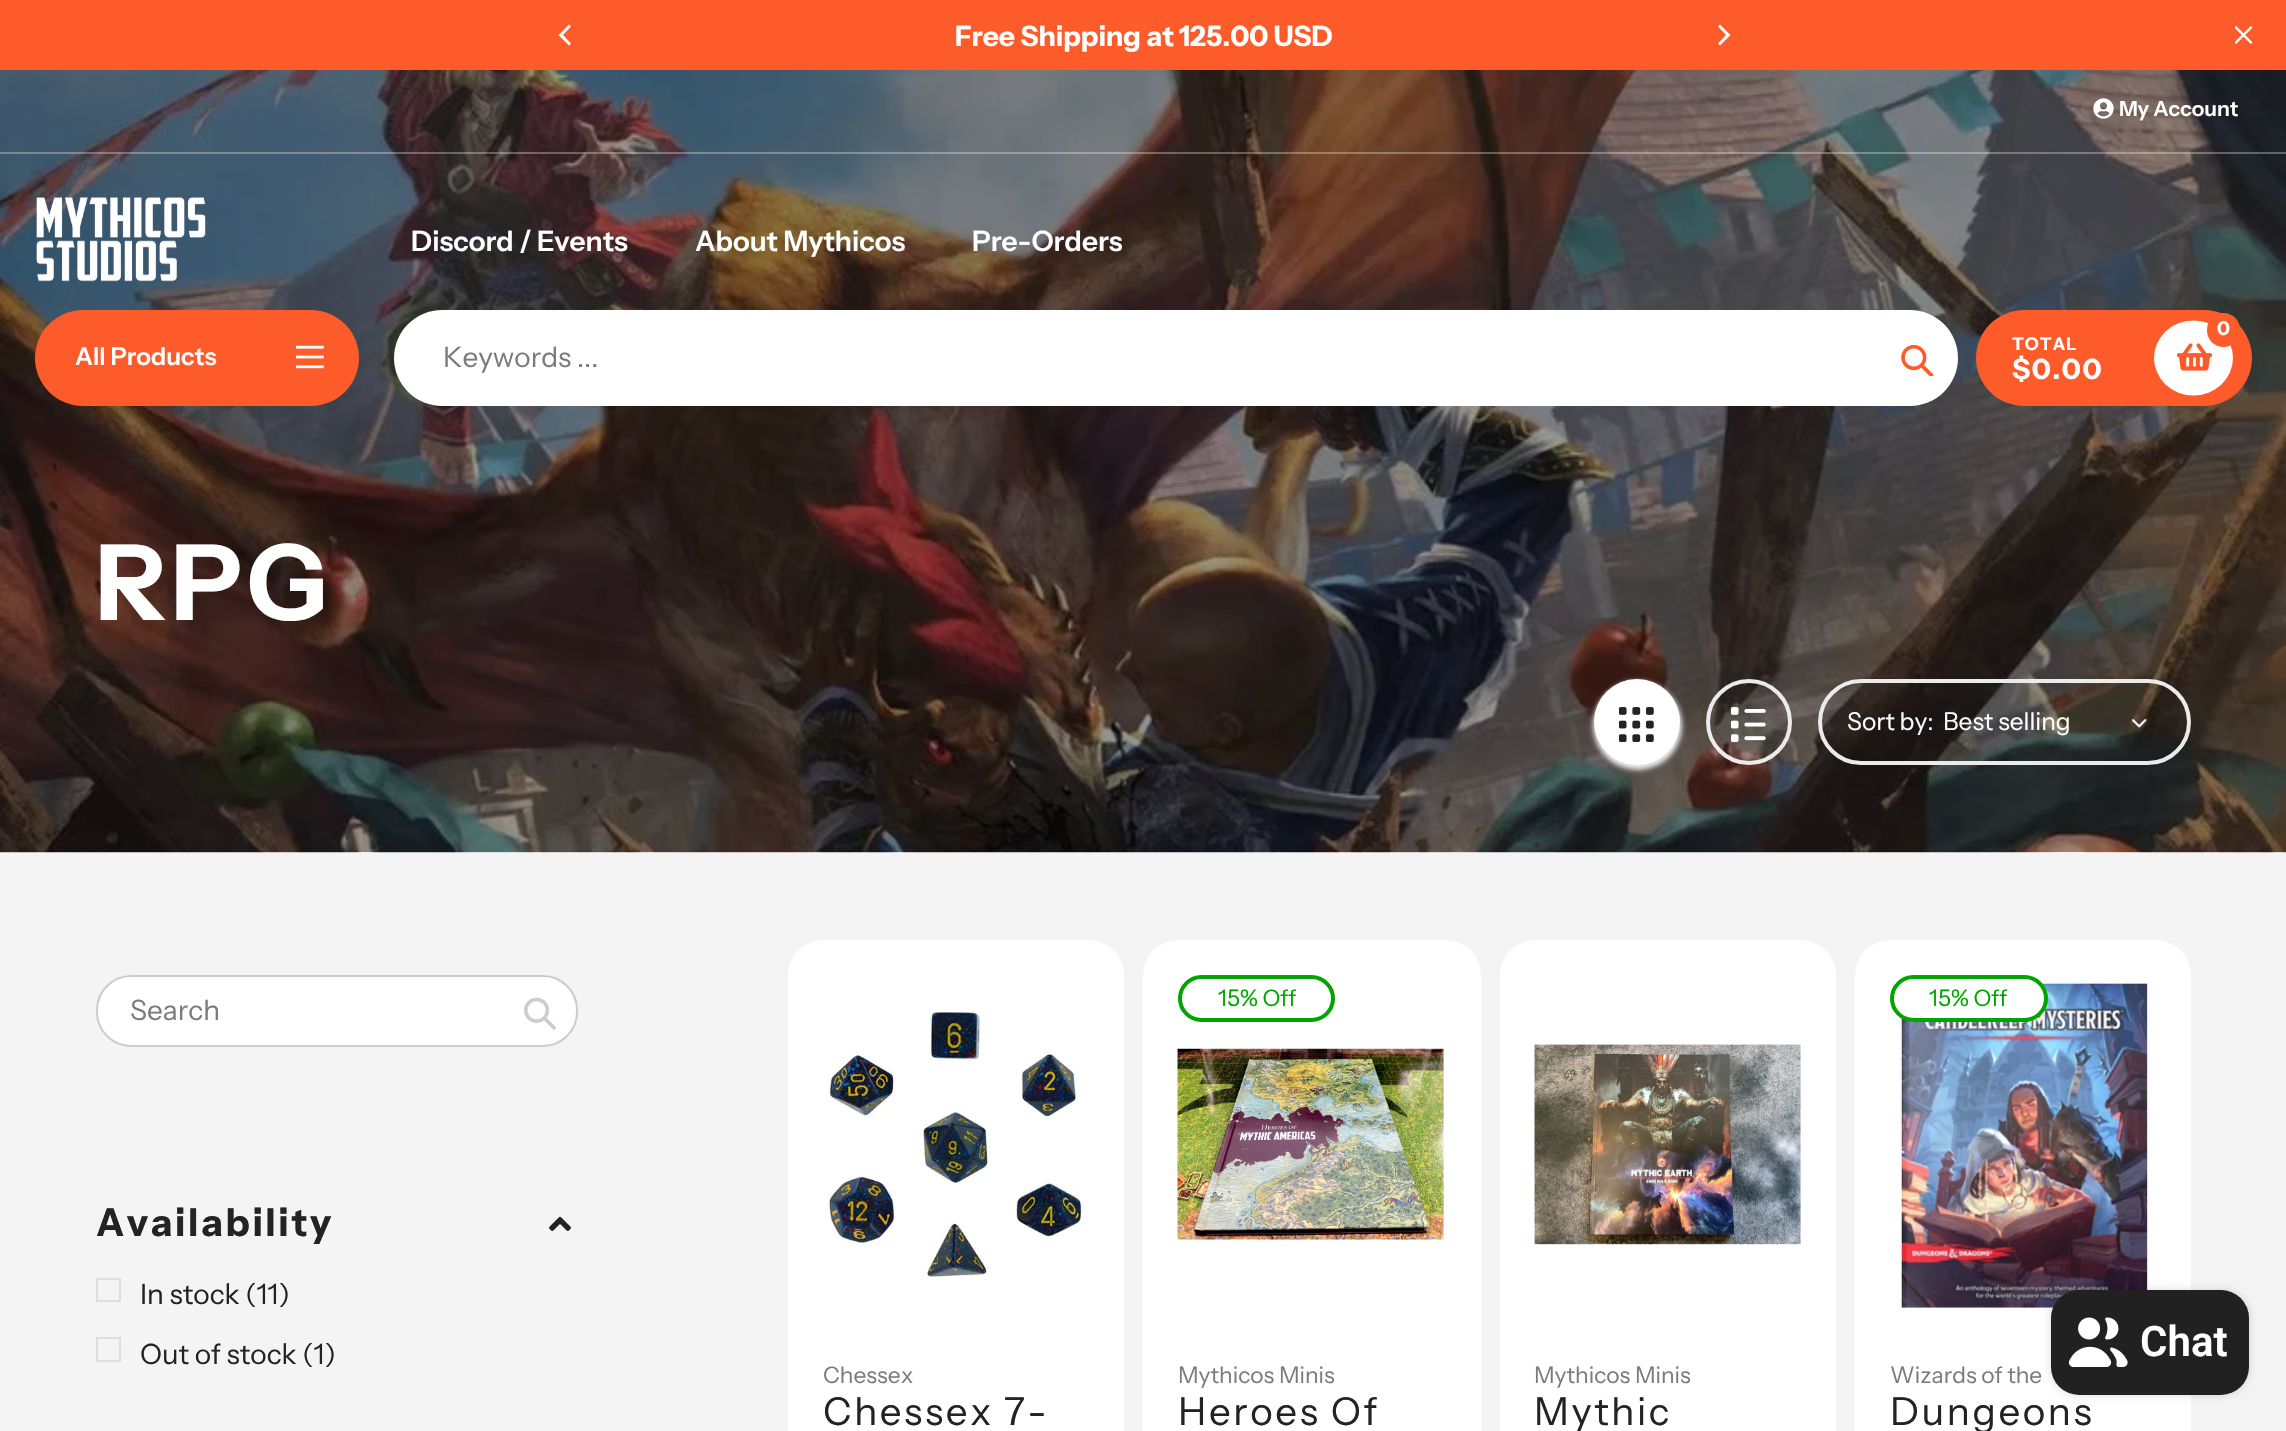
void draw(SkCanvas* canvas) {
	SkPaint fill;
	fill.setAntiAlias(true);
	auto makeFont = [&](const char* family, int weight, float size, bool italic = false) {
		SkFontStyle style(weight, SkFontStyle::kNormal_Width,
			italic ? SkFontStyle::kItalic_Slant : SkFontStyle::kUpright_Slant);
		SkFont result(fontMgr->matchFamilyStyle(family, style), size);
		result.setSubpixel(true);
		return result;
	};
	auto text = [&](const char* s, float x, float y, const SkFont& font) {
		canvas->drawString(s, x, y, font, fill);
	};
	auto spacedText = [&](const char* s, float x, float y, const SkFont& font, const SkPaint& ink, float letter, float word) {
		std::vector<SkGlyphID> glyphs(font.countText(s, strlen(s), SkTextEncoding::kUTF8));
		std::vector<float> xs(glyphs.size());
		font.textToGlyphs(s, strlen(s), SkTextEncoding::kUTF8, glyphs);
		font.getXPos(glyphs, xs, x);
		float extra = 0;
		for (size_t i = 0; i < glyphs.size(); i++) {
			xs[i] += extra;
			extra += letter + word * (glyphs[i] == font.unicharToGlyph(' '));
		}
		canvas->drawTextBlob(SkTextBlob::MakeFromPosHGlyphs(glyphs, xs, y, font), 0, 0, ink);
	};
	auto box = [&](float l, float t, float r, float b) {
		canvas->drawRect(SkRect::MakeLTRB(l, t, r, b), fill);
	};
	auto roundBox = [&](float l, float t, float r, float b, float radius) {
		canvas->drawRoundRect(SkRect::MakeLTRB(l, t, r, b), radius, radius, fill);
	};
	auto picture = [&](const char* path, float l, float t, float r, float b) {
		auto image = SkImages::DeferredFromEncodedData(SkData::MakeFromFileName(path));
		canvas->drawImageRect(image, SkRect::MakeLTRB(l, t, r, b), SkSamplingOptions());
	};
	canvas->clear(0xFFF4F4F4);
	fill.setColor(0xFFFD5B2A);
	box(0, 0, 2286, 70);
	fill.setColor(0xFFFFFFFF);
	canvas->drawPath(SkPathBuilder().moveTo(558.5f, 35).lineTo(569, 45.5f).lineTo(571, 43.5f).lineTo(563, 35).lineTo(571, 26.5f).lineTo(569, 24.5f).close().detach(), fill);
	canvas->drawPath(SkPathBuilder().moveTo(1730.5f, 35).lineTo(1720, 24.5f).lineTo(1718, 26.5f).lineTo(1726, 35).lineTo(1718, 43.5f).lineTo(1720, 45.5f).close().detach(), fill);
	picture("image0.png", 2235, 26, 2252, 44);
	picture("image6.png", 0, 70, 2286, 853);
	fill.setColor(0x4DFFFFFF);
	box(0, 152, 2286, 154);
	picture("image1.png", 2093, 98, 2114, 119);
	picture("image2.png", 36, 197, 206, 282);
	fill.setColor(0xFFFD5B2A);
	roundBox(35, 310, 359, 406, 48);
	picture("image3.png", 296, 345, 324, 369);
	fill.setColor(0xFFFFFFFF);
	roundBox(394, 310, 1958, 406, 48);
	picture("image4.png", 1901, 344, 1934, 376);
	fill.setColor(0xFFFD5B2A);
	roundBox(1976, 310, 2252, 406, 48);
	fill.setColor(0xFFFFFFFF);
	canvas->drawOval(SkRect::MakeLTRB(2154, 320.5f, 2233, 395.5f), fill);
	picture("image5.png", 2177, 343, 2212, 371);
	fill.setColor(0xFFFD5B2A);
	roundBox(2207, 313, 2240, 347, 16.5f);
	fill.setColor(0xFFEBEBEB);
	fill.setMaskFilter(SkMaskFilter::MakeBlur(kNormal_SkBlurStyle, 2.5f));
	canvas->drawRoundRect(SkRect::MakeLTRB(1593, 681, 1682, 770), 44.5f, 44.5f, fill);
	fill.setMaskFilter(nullptr);
	fill.setColor(0xFFFFFFFF);
	canvas->drawCircle(1637, 722, 43, fill);
	picture("image7.png", 1619, 707, 1654, 742);
	fill.setStyle(SkPaint::kStroke_Style);
	fill.setStrokeWidth(4);
	fill.setColor(0xFFEBEBEB);
	canvas->drawCircle(1749, 722, 41, fill);
	picture("image8.png", 1731, 707, 1766, 742);
	canvas->drawRoundRect(SkRect::MakeLTRB(1820, 681, 2189, 763), 41, 41, fill);
	picture("image9.png", 2132, 719, 2147, 728);
	fill.setStyle(SkPaint::kFill_Style);
	fill.setColor(0xFFFFFFFF);
	canvas->drawRoundRect(SkRect::MakeLTRB(97, 976, 577, 1046), 34, 34, fill);
	fill.setStyle(SkPaint::kStroke_Style);
	fill.setStrokeWidth(2);
	fill.setColor(0xFFCCCCCC);
	canvas->drawRoundRect(SkRect::MakeLTRB(97, 976, 577, 1046), 34, 34, fill);
	picture("image10.png", 524, 997, 556, 1030);
	picture("image11.png", 549, 1216, 571, 1231);
	fill.setColor(0xFFDDDDDD);
	canvas->drawRect(SkRect::MakeLTRB(97, 1279, 120, 1301), fill);
	canvas->drawRect(SkRect::MakeLTRB(97, 1338, 120, 1361), fill);
	fill.setStyle(SkPaint::kFill_Style);
	fill.setColor(0xFFFFFFFF);
	roundBox(788, 940, 1124, 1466, 35);
	picture("image12.png", 828, 1011, 1084, 1277);
	roundBox(1143, 940, 1481, 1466, 35);
	fill.setStyle(SkPaint::kStroke_Style);
	fill.setStrokeWidth(4);
	fill.setColor(0xFF00A500);
	canvas->drawRoundRect(SkRect::MakeLTRB(1180, 977, 1333, 1020), 21.5f, 21.5f, fill);
	picture("image13.png", 1177, 1048, 1444, 1240);
	fill.setStyle(SkPaint::kFill_Style);
	fill.setColor(0xFFFFFFFF);
	roundBox(1500, 940, 1836, 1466, 35);
	picture("image14.png", 1534, 1044, 1801, 1245);
	roundBox(1855, 940, 2191, 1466, 35);
	picture("image15.png", 1900, 981, 2149, 1310);
	canvas->drawRoundRect(SkRect::MakeLTRB(1892, 977, 2046, 1020), 21.5f, 21.5f, fill);
	fill.setStyle(SkPaint::kStroke_Style);
	fill.setColor(0xFF00A500);
	canvas->drawRoundRect(SkRect::MakeLTRB(1892, 977, 2046, 1020), 21.5f, 21.5f, fill);
	fill.setStyle(SkPaint::kFill_Style);
	fill.setColor(0x26000000);
	fill.setMaskFilter(SkMaskFilter::MakeBlur(kNormal_SkBlurStyle, 4.5f));
	canvas->drawRoundRect(SkRect::MakeLTRB(2051, 1290, 2249, 1395), 28, 28, fill);
	fill.setMaskFilter(nullptr);
	fill.setColor(0xFF212121);
	roundBox(2051, 1290, 2249, 1395, 28);
	picture("image16.png", 2068, 1317, 2128, 1367);
	auto font1 = makeFont("Instrument Sans", 700, 28);
	fill.setColor(0xFFFFFFFF);
	text("Free Shipping at 125.00 USD", 955, 46, font1);
	auto font2 = makeFont("Instrument Sans", 600, 21);
	text("My Account", 2119, 116, font2);
	auto font3 = makeFont("Instrument Sans", 600, 28);
	text("Discord / Events", 411, 251, font3);
	text("About Mythicos", 695, 251, font3);
	text("Pre-Orders", 972, 251, font3);
	auto font4 = makeFont("Instrument Sans", 600, 24.5f);
	text("All Products", 75, 365, font4);
	auto font5 = makeFont("Instrument Sans", 400, 28);
	fill.setColor(0xFF7B7B7B);
	text("Keywords ...", 443, 367, font5);
	auto font6 = makeFont("Instrument Sans", 700, 19);
	fill.setColor(0xFFFFFFFF);
	text("0", 2217, 335, font6);
	auto font7 = makeFont("Instrument Sans", 700, 17.5f);
	spacedText("TOTAL", 2012, 350, font7, fill, 1, 0);
	spacedText("$0.00", 2012, 379, font1, fill, 1.5f, 0);
	auto font8 = makeFont("Instrument Sans", 700, 105);
	spacedText("RPG", 96, 620, font8, fill, 5, 0);
	auto font9 = makeFont("Instrument Sans", 400, 24.5f);
	text("Sort by:", 1847, 730, font9);
	text("Best selling", 1943, 730, font9);
	fill.setColor(0xFF7B7B7B);
	text("Search", 130, 1020, font5);
	auto font10 = makeFont("Instrument Sans", 700, 38.5f);
	fill.setColor(0xFF232323);
	spacedText("Availability", 96, 1236, font10, fill, 2.6f, 0);
	text("In stock (11)", 140, 1304, font5);
	text("Out of stock (1)", 140, 1364, font5);
	auto font11 = makeFont("Instrument Sans", 400, 22.75f);
	fill.setColor(0xFF7B7B7B);
	text("Chessex", 823, 1383, font11);
	auto font12 = makeFont("Instrument Sans", 400, 38.5f);
	fill.setColor(0xFF232323);
	spacedText("Chessex 7-", 823, 1425, font12, fill, 2.6f, 0);
	fill.setColor(0xFF00A500);
	text("15% Off", 1218, 1006, font11);
	fill.setColor(0xFF7B7B7B);
	text("Mythicos Minis", 1178, 1383, font11);
	fill.setColor(0xFF232323);
	spacedText("Heroes Of", 1178, 1425, font12, fill, 2.6f, 0);
	fill.setColor(0xFF7B7B7B);
	text("Mythicos Minis", 1534, 1383, font11);
	fill.setColor(0xFF232323);
	spacedText("Mythic", 1534, 1425, font12, fill, 2.6f, 0);
	fill.setColor(0xFF00A500);
	text("15% Off", 1929, 1006, font11);
	fill.setColor(0xFF7B7B7B);
	text("Wizards of the", 1890, 1383, font11);
	fill.setColor(0xFF232323);
	spacedText("Dungeons", 1890, 1425, font12, fill, 2.6f, 0);
	auto font13 = makeFont("Roboto", 600, 42);
	fill.setColor(0xFFFFFFFF);
	text("Chat", 2140, 1356, font13);
}
